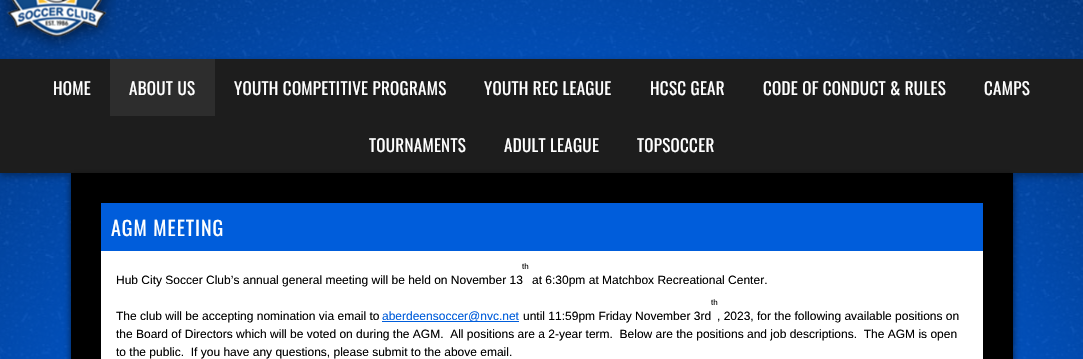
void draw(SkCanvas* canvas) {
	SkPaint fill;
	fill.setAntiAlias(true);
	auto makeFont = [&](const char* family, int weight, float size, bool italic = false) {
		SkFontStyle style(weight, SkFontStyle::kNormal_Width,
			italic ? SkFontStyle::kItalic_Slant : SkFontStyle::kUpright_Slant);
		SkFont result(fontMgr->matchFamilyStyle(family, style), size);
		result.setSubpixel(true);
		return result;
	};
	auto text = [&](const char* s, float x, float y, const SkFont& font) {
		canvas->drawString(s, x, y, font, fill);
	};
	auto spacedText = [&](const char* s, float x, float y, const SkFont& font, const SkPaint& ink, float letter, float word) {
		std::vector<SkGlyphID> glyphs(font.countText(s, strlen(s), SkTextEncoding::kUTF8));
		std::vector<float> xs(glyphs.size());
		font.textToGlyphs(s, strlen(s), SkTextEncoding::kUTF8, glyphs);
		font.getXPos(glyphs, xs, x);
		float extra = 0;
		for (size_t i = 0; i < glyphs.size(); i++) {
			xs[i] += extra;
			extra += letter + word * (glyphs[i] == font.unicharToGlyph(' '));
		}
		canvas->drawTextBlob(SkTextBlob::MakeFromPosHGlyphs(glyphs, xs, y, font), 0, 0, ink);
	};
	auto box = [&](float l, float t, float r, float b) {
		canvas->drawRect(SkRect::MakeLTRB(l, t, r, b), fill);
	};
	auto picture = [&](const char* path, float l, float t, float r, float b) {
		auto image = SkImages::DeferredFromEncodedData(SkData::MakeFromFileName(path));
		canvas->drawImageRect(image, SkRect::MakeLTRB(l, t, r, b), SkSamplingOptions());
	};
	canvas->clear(0xFFFFFFFF);
	picture("image0.png", 0, 0, 1083, 359);
	picture("image1.png", 0, 0, 1083, 359);
	fill.setColor(0x59000000);
	fill.setMaskFilter(SkMaskFilter::MakeBlur(kNormal_SkBlurStyle, 3.5f));
	canvas->drawRect(SkRect::MakeLTRB(0, 62, 1083, 176), fill);
	fill.setMaskFilter(nullptr);
	picture("image2.png", 0, 0, 116, 51);
	fill.setColor(0xFF1D1D1D);
	box(0, 59, 1083, 173);
	fill.setColor(0xFF2D2D2D);
	box(110, 59, 215, 116);
	fill.setColor(0x9C000000);
	fill.setMaskFilter(SkMaskFilter::MakeBlur(kNormal_SkBlurStyle, 3.5f));
	canvas->drawRect(SkRect::MakeLTRB(71, 176, 1013, 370), fill);
	fill.setMaskFilter(nullptr);
	fill.setColor(0xFF000000);
	box(71, 173, 1013, 359);
	fill.setColor(0xFF005DDB);
	box(101, 203, 983, 251);
	fill.setColor(0xFFFFFFFF);
	box(101, 251, 983, 359);
	fill.setColor(0xFF005DDB);
	box(382, 321, 519, 322);
	auto font1 = makeFont("Oswald", 400, 17);
	fill.setColor(0xFFFFFFFF);
	spacedText("HOME", 53, 95, font1, fill, 0.3f, 0);
	spacedText("ABOUT US", 129, 95, font1, fill, 0.3f, 0);
	spacedText("YOUTH COMPETITIVE PROGRAMS", 234, 95, font1, fill, 0.3f, 0);
	spacedText("YOUTH REC LEAGUE", 484, 95, font1, fill, 0.3f, 0);
	spacedText("HCSC GEAR", 650, 95, font1, fill, 0.3f, 0);
	spacedText("CODE OF CONDUCT & RULES", 763, 95, font1, fill, 0.3f, 0);
	spacedText("CAMPS", 984, 95, font1, fill, 0.3f, 0);
	spacedText("TOURNAMENTS", 369, 152, font1, fill, 0.3f, 0);
	spacedText("ADULT LEAGUE", 504, 152, font1, fill, 0.3f, 0);
	spacedText("TOPSOCCER", 637, 152, font1, fill, 0.3f, 0);
	auto font2 = makeFont("Oswald", 400, 20);
	spacedText("AGM MEETING", 111, 236, font2, fill, 1, 0);
	auto font3 = makeFont("Liberation Sans", 400, 8);
	fill.setColor(0xFF000000);
	text("th", 522, 269, font3);
	auto font4 = makeFont("Liberation Sans", 400, 12);
	text("Hub City Soccer Club’s annual general meeting will be held on November 13", 116, 284, font4);
	text("at 6:30pm at Matchbox Recreational Center.", 532, 284, font4);
	text("th", 711, 305, font3);
	text("The club will be accepting nomination via email to", 116, 320, font4);
	fill.setColor(0xFF005DDB);
	text("aberdeensoccer@nvc.net", 382, 320, font4);
	fill.setColor(0xFF000000);
	text("until 11:59pm Friday November 3rd", 523, 320, font4);
	text(", 2023, for the following available positions on", 717, 320, font4);
	text("the Board of Directors which will be voted on during the AGM.  All positions are a 2-year term.  Below are the positions and job descriptions.  The AGM is open", 116, 338, font4);
	text("to the public.  If you have any questions, please submit to the above email.", 116, 356, font4);
}
